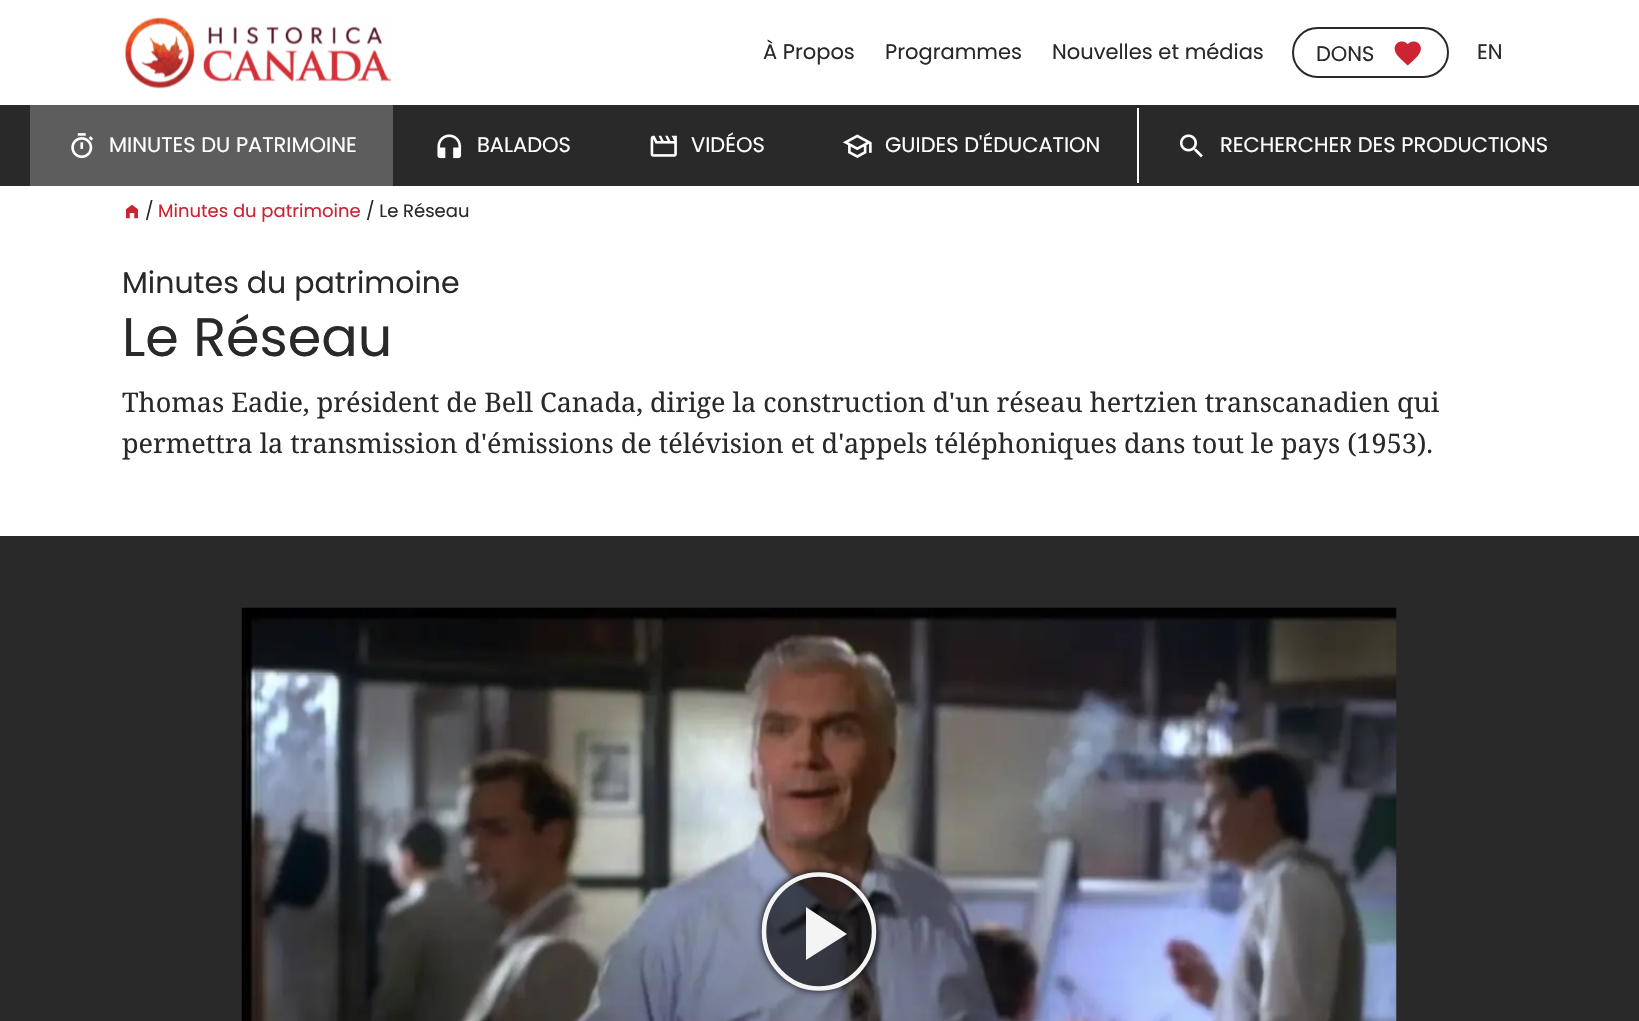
void draw(SkCanvas* canvas) {
	SkPaint fill;
	fill.setAntiAlias(true);
	auto makeFont = [&](const char* family, int weight, float size, bool italic = false) {
		SkFontStyle style(weight, SkFontStyle::kNormal_Width,
			italic ? SkFontStyle::kItalic_Slant : SkFontStyle::kUpright_Slant);
		SkFont result(fontMgr->matchFamilyStyle(family, style), size);
		result.setSubpixel(true);
		return result;
	};
	auto text = [&](const char* s, float x, float y, const SkFont& font) {
		canvas->drawString(s, x, y, font, fill);
	};
	auto box = [&](float l, float t, float r, float b) {
		canvas->drawRect(SkRect::MakeLTRB(l, t, r, b), fill);
	};
	auto picture = [&](const char* path, float l, float t, float r, float b) {
		auto image = SkImages::DeferredFromEncodedData(SkData::MakeFromFileName(path));
		canvas->drawImageRect(image, SkRect::MakeLTRB(l, t, r, b), SkSamplingOptions());
	};
	canvas->clear(0xFFFFFFFF);
	picture("image0.png", 125, 17, 392, 89);
	fill.setStyle(SkPaint::kStroke_Style);
	fill.setStrokeWidth(2);
	fill.setColor(0xFF292929);
	canvas->drawRoundRect(SkRect::MakeLTRB(1293, 28, 1448, 77), 24.5f, 24.5f, fill);
	picture("image1.png", 1394, 41, 1421, 66);
	fill.setStyle(SkPaint::kFill_Style);
	box(0, 105, 1639, 186);
	fill.setColor(0xFF5D5D5D);
	box(30, 105, 393, 186);
	picture("image2.png", 71, 133, 94, 159);
	picture("image3.png", 437, 134, 462, 159);
	picture("image4.png", 650, 135, 677, 157);
	picture("image5.png", 843, 134, 872, 158);
	fill.setColor(0xFFFFFFFF);
	box(1137, 108, 1139, 183);
	picture("image6.png", 1179, 134, 1203, 158);
	picture("image7.png", 126, 204, 138, 219);
	fill.setColor(0xFF292929);
	box(0, 536, 1639, 1021);
	picture("image8.png", 241, 607, 1397, 1021);
	canvas->save();
	canvas->clipPath(SkPathBuilder(SkPathFillType::kEvenOdd).moveTo(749, 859).lineTo(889, 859).lineTo(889, 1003).lineTo(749, 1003).close().moveTo(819, 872).cubicTo(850.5f, 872, 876, 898.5f, 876, 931.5f).cubicTo(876, 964, 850.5f, 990.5f, 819, 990.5f).cubicTo(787.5f, 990.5f, 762, 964, 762, 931.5f).cubicTo(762, 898.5f, 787.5f, 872, 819, 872).close().detach(), true);
	fill.setColor(0xFF000000);
	fill.setMaskFilter(SkMaskFilter::MakeBlur(kNormal_SkBlurStyle, 4));
	canvas->drawRoundRect(SkRect::MakeLTRB(762, 872, 876, 990), 57, 57, fill);
	fill.setMaskFilter(nullptr);
	canvas->restore();
	fill.setColor(0x99000000);
	canvas->drawOval(SkRect::MakeLTRB(762, 872.5f, 876, 990.5f), fill);
	fill.setStyle(SkPaint::kStroke_Style);
	fill.setStrokeWidth(4.5f);
	fill.setColor(0xFFF4F4F4);
	canvas->drawPath(SkPathBuilder().moveTo(819, 874.5f).cubicTo(849, 874.5f, 874, 900, 874, 931.5f).cubicTo(874, 963, 849, 988.5f, 819, 988.5f).cubicTo(789, 988.5f, 764, 963, 764, 931.5f).cubicTo(764, 900, 789, 874.5f, 819, 874.5f).close().detach(), fill);
	fill.setStyle(SkPaint::kFill_Style);
	canvas->drawPath(SkPathBuilder().moveTo(806, 907).lineTo(806, 960).lineTo(847, 934).close().detach(), fill);
	auto font1 = makeFont("Poppins", 400, 21);
	fill.setColor(0xFF292929);
	text("À Propos", 763, 59, font1);
	text("Programmes", 885, 59, font1);
	text("Nouvelles et médias", 1052, 59, font1);
	text("DONS", 1316, 61, font1);
	text("EN", 1477, 59, font1);
	fill.setColor(0xFFFFFFFF);
	text("MINUTES DU PATRIMOINE", 109, 152, font1);
	text("BALADOS", 477, 152, font1);
	text("VIDÉOS", 691, 152, font1);
	text("GUIDES D'ÉDUCATION", 885, 152, font1);
	text("RECHERCHER DES PRODUCTIONS", 1220, 152, font1);
	auto font2 = makeFont("Poppins", 400, 18);
	fill.setColor(0xFF292929);
	text("/", 145, 217, font2);
	fill.setColor(0xFFCC2433);
	text("Minutes du patrimoine", 158, 217, font2);
	fill.setColor(0xFF292929);
	text("/ Le Réseau", 366, 217, font2);
	auto font3 = makeFont("Poppins", 400, 30);
	text("Minutes du patrimoine", 122, 293, font3);
	auto font4 = makeFont("Poppins", 400, 54);
	text("Le Réseau", 122, 356, font4);
	auto font5 = makeFont("Noto Serif", 400, 27);
	text("Thomas Eadie, président de Bell Canada, dirige la construction d'un réseau hertzien transcanadien qui", 122, 412, font5);
	text("permettra la transmission d'émissions de télévision et d'appels téléphoniques dans tout le pays (1953).", 122, 453, font5);
}
